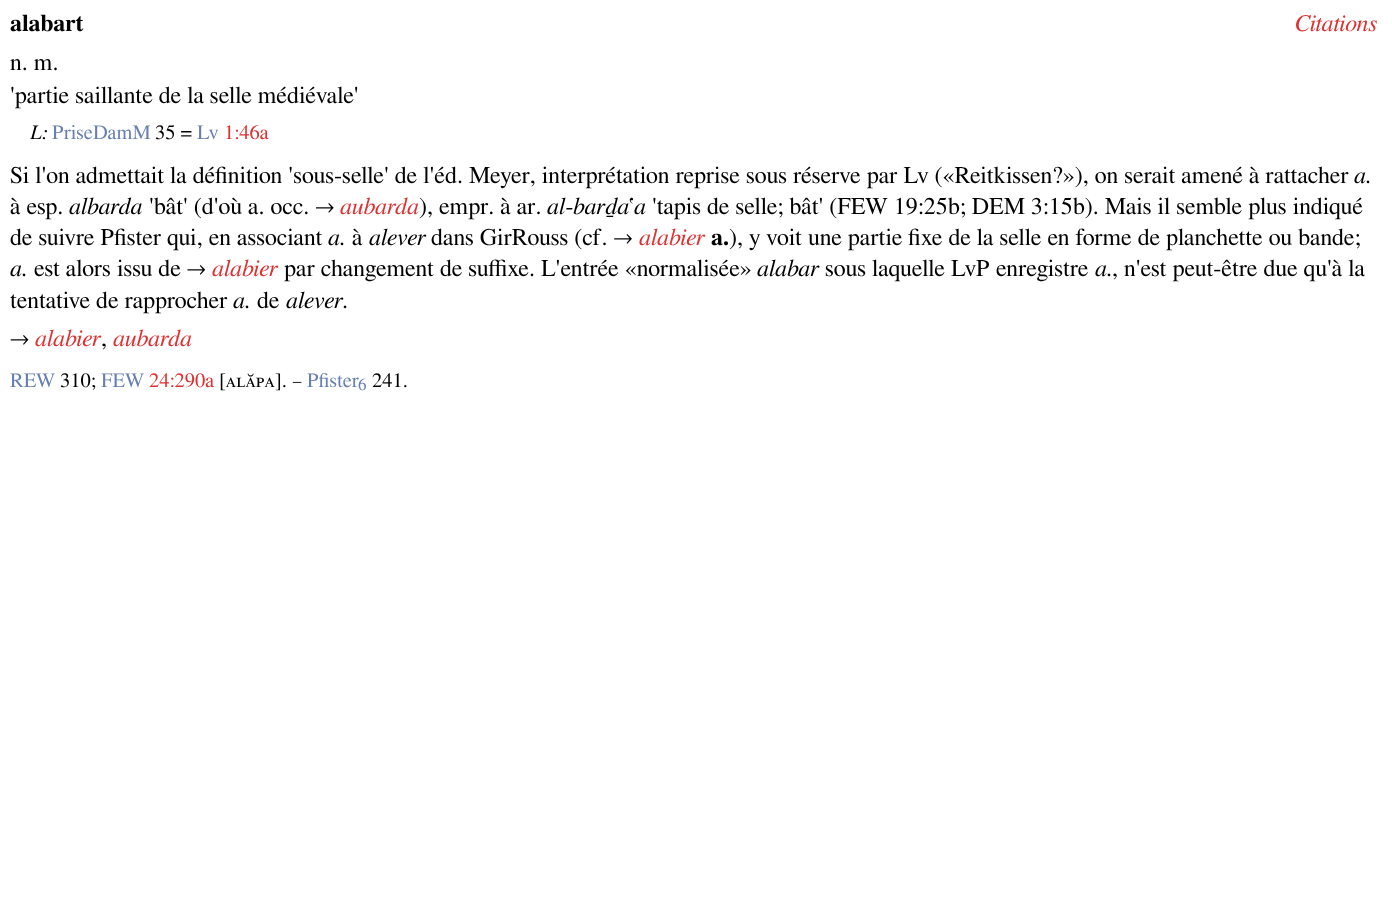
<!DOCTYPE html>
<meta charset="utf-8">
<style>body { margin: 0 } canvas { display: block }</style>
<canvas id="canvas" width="1392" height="908"></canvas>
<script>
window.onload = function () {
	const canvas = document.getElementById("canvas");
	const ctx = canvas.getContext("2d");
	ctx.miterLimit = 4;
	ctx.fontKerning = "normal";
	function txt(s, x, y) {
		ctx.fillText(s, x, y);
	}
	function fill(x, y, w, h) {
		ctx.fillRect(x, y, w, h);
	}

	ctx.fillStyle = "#FFFFFF";
	fill(0, 0, 1392, 908);
	ctx.font = "bold 24px FreeSerif";
	ctx.fillStyle = "#000000";
	txt("alabart", 10, 31);
	ctx.font = "italic 24px FreeSerif";
	ctx.fillStyle = "#DE3131";
	txt("Citations", 1295, 31);
	ctx.font = "24px FreeSerif";
	ctx.fillStyle = "#000000";
	txt("n. m.", 10, 70);
	txt("'partie saillante de la selle médiévale'", 10, 103);
	ctx.font = "italic 20.5px FreeSerif";
	txt("L:", 30, 139);
	ctx.font = "20.5px FreeSerif";
	ctx.fillStyle = "#677FB1";
	txt("PriseDamM", 52, 139);
	ctx.fillStyle = "#000000";
	txt("35 =", 155, 139);
	ctx.fillStyle = "#677FB1";
	txt("Lv", 197, 139);
	ctx.fillStyle = "#DE3131";
	txt("1:46a", 224, 139);
	ctx.font = "24px FreeSerif";
	ctx.fillStyle = "#000000";
	txt("Si l'on admettait la définition 'sous‑selle' de l'éd. Meyer, interprétation reprise sous réserve par Lv («Reitkissen?»), on serait amené à rattacher", 10, 183);
	ctx.font = "italic 24px FreeSerif";
	txt("a.", 1354, 183);
	ctx.font = "24px FreeSerif";
	txt("à esp.", 10, 214);
	ctx.font = "italic 24px FreeSerif";
	txt("albarda", 69, 214);
	ctx.font = "24px FreeSerif";
	txt("'bât' (d'où a. occ. →", 149, 214);
	ctx.font = "italic 24px FreeSerif";
	ctx.fillStyle = "#DE3131";
	txt("aubarda", 340, 214);
	ctx.font = "24px FreeSerif";
	ctx.fillStyle = "#000000";
	txt("), empr. à ar.", 419, 214);
	ctx.font = "italic 24px FreeSerif";
	txt("al‑barḏa", 547, 214);
	ctx.font = "24px FreeSerif";
	txt("‛", 629, 214);
	ctx.font = "italic 24px FreeSerif";
	txt("a", 634, 214);
	ctx.font = "24px FreeSerif";
	txt("'tapis de selle; bât' (FEW 19:25b; DEM 3:15b). Mais il semble plus indiqué", 652, 214);
	txt("de suivre Pfister qui, en associant", 10, 245);
	ctx.font = "italic 24px FreeSerif";
	txt("a.", 328, 245);
	ctx.font = "24px FreeSerif";
	txt("à", 352, 245);
	ctx.font = "italic 24px FreeSerif";
	txt("alever", 369, 245);
	ctx.font = "24px FreeSerif";
	txt("dans GirRouss (cf. →", 431, 245);
	ctx.font = "italic 24px FreeSerif";
	ctx.fillStyle = "#DE3131";
	txt("alabier", 639, 245);
	ctx.font = "bold 24px FreeSerif";
	ctx.fillStyle = "#000000";
	txt("a.", 711, 245);
	ctx.font = "24px FreeSerif";
	txt("), y voit une partie fixe de la selle en forme de planchette ou bande;", 729, 245);
	ctx.font = "italic 24px FreeSerif";
	txt("a.", 10, 276);
	ctx.font = "24px FreeSerif";
	txt("est alors issu de →", 34, 276);
	ctx.font = "italic 24px FreeSerif";
	ctx.fillStyle = "#DE3131";
	txt("alabier", 212, 276);
	ctx.font = "24px FreeSerif";
	ctx.fillStyle = "#000000";
	txt("par changement de suffixe. L'entrée «normalisée»", 284, 276);
	ctx.font = "italic 24px FreeSerif";
	txt("alabar", 757, 276);
	ctx.font = "24px FreeSerif";
	txt("sous laquelle LvP enregistre", 825, 276);
	ctx.font = "italic 24px FreeSerif";
	txt("a.", 1095, 276);
	ctx.font = "24px FreeSerif";
	txt(", n'est peut‑être due qu'à la", 1112, 276);
	txt("tentative de rapprocher", 10, 308);
	ctx.font = "italic 24px FreeSerif";
	txt("a.", 233, 308);
	ctx.font = "24px FreeSerif";
	txt("de", 257, 308);
	ctx.font = "italic 24px FreeSerif";
	txt("alever", 286, 308);
	ctx.font = "24px FreeSerif";
	txt(".", 342, 308);
	txt("→", 10, 346);
	ctx.font = "italic 24px FreeSerif";
	ctx.fillStyle = "#DE3131";
	txt("alabier", 35, 346);
	txt("aubarda", 113, 346);
	ctx.font = "24px FreeSerif";
	ctx.fillStyle = "#000000";
	txt(",", 101, 346);
	ctx.font = "20.5px FreeSerif";
	ctx.fillStyle = "#677FB1";
	txt("REW", 10, 387);
	ctx.fillStyle = "#000000";
	txt("310;", 60, 387);
	ctx.fillStyle = "#677FB1";
	txt("FEW", 101, 387);
	ctx.fillStyle = "#DE3131";
	txt("24:290a", 149, 387);
	ctx.fillStyle = "#000000";
	txt("[ᴀʟᴀ̆ᴘᴀ]. –", 219, 387);
	ctx.fillStyle = "#677FB1";
	txt("Pfister", 307, 387);
	ctx.font = "17px FreeSerif";
	txt("6", 358, 390);
	ctx.font = "20.5px FreeSerif";
	ctx.fillStyle = "#000000";
	txt("241.", 372, 387);
};
</script>
